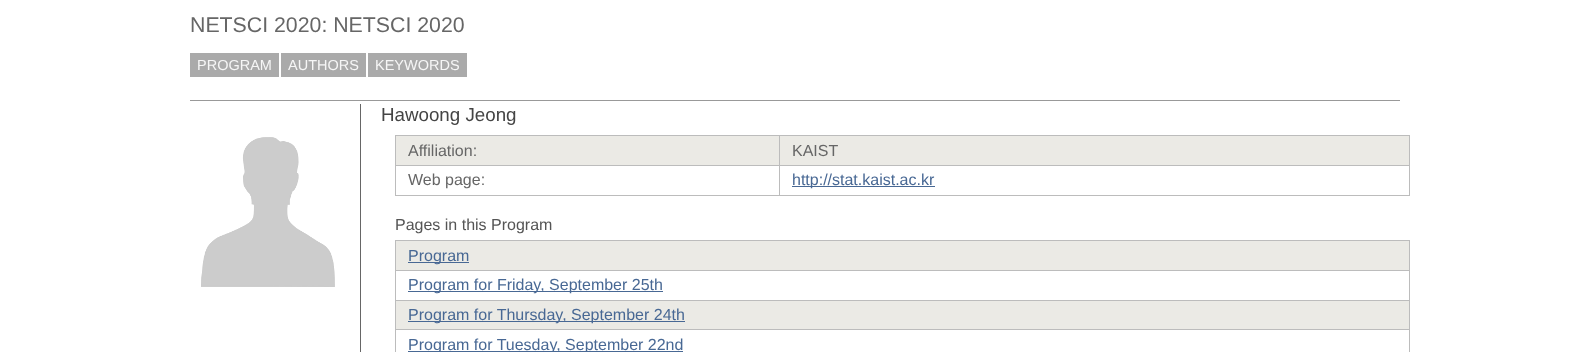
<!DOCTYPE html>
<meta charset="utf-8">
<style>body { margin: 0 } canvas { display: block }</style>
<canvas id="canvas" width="1580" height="352"></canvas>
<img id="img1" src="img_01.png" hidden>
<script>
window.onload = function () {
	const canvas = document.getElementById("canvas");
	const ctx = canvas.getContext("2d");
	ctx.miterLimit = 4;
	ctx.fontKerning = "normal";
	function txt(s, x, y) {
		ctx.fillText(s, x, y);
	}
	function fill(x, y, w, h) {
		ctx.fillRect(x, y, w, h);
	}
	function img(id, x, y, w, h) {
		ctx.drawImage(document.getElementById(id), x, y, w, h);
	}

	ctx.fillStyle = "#FFFFFF";
	fill(0, 0, 1580, 352);
	ctx.fillStyle = "#AAAAAA";
	fill(190, 53, 89, 24);
	fill(281, 53, 85, 24);
	fill(368, 53, 99, 24);
	ctx.fillStyle = "#999999";
	fill(190, 100, 1210, 1);
	img("img1", 201, 137, 134, 150);
	ctx.fillStyle = "#666666";
	fill(360, 104, 1, 248);
	ctx.fillStyle = "#EBEAE5";
	fill(396, 136, 1013, 29);
	ctx.fillStyle = "#BCBCBC";
	fill(395, 135, 1015, 1);
	fill(779, 165, 631, 1);
	fill(395, 195, 1015, 1);
	fill(779, 165, 1, 31);
	fill(395, 165, 385, 1);
	fill(779, 135, 1, 31);
	fill(395, 135, 1, 61);
	fill(1409, 135, 1, 61);
	ctx.fillStyle = "#486894";
	fill(792, 186, 143, 1);
	ctx.fillStyle = "#EBEAE5";
	fill(396, 241, 1013, 29);
	ctx.fillStyle = "#BCBCBC";
	fill(395, 240, 1015, 1);
	ctx.fillStyle = "#486894";
	fill(408, 262, 61, 1);
	ctx.fillStyle = "#BCBCBC";
	fill(395, 270, 1015, 1);
	fill(395, 300, 1015, 1);
	fill(395, 329, 1015, 1);
	fill(1409, 329, 1, 23);
	fill(1409, 300, 1, 30);
	fill(1409, 240, 1, 61);
	fill(395, 329, 1, 23);
	fill(395, 300, 1, 30);
	fill(395, 240, 1, 61);
	ctx.fillStyle = "#486894";
	fill(408, 291, 255, 1);
	ctx.fillStyle = "#EBEAE5";
	fill(396, 301, 1013, 28);
	ctx.fillStyle = "#486894";
	fill(408, 321, 277, 1);
	fill(408, 351, 275, 1);
	ctx.font = "21.3px Liberation Sans";
	ctx.fillStyle = "#666666";
	txt("NETSCI 2020: NETSCI 2020", 190, 32);
	ctx.font = "14.5px Liberation Sans";
	ctx.fillStyle = "#F6F6F6";
	txt("PROGRAM", 197, 70);
	txt("AUTHORS", 288, 70);
	txt("KEYWORDS", 375, 70);
	ctx.font = "18.75px Liberation Sans";
	ctx.fillStyle = "#444444";
	txt("Hawoong Jeong", 381, 121);
	ctx.font = "16px Liberation Sans";
	ctx.fillStyle = "#666666";
	txt("Affiliation:", 408, 156);
	txt("KAIST", 792, 156);
	txt("Web page:", 408, 185);
	ctx.fillStyle = "#486894";
	txt("http://stat.kaist.ac.kr", 792, 185);
	ctx.fillStyle = "#555555";
	txt("Pages in this Program", 395, 230);
	ctx.fillStyle = "#486894";
	txt("Program", 408, 261);
	txt("Program for Friday, September 25th", 408, 290);
	txt("Program for Thursday, September 24th", 408, 320);
	txt("Program for Tuesday, September 22nd", 408, 350);
};
</script>
